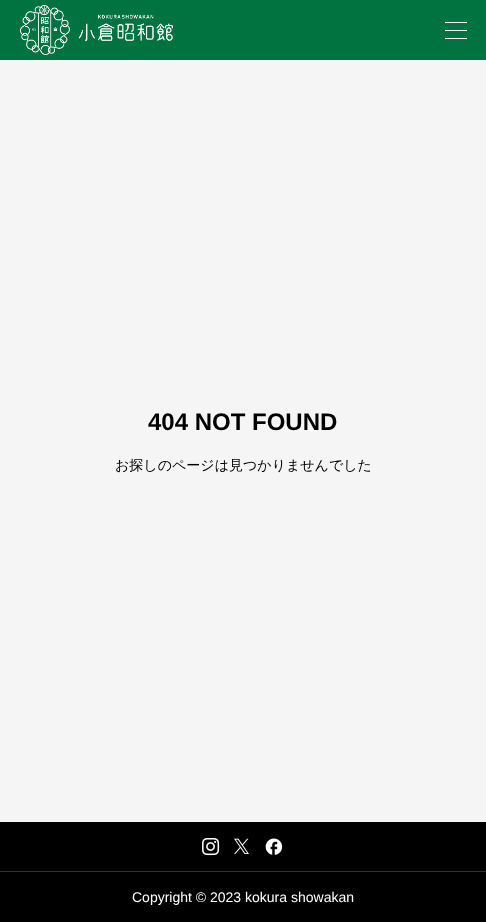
<!DOCTYPE html>
<meta charset="utf-8">
<style>body { margin: 0 } canvas { display: block }</style>
<canvas id="canvas" width="486" height="922"></canvas>
<img id="img1" src="img_01.png" hidden>
<img id="img2" src="img_02.png" hidden>
<img id="img3" src="img_03.png" hidden>
<img id="img4" src="img_04.png" hidden>
<script>
window.onload = function () {
	const canvas = document.getElementById("canvas");
	const ctx = canvas.getContext("2d");
	ctx.miterLimit = 4;
	ctx.fontKerning = "normal";
	function txt(s, x, y) {
		ctx.fillText(s, x, y);
	}
	function fill(x, y, w, h) {
		ctx.fillRect(x, y, w, h);
	}
	function img(id, x, y, w, h) {
		ctx.drawImage(document.getElementById(id), x, y, w, h);
	}

	ctx.fillStyle = "#F5F5F5";
	fill(0, 0, 486, 922);
	ctx.fillStyle = "#007340";
	fill(0, 0, 486, 60);
	img("img1", 20, 5, 153, 50);
	ctx.fillStyle = "#FFFFFF";
	fill(445, 22, 22, 1);
	fill(445, 30, 22, 1);
	fill(445, 38, 22, 1);
	ctx.fillStyle = "#000000";
	fill(0, 822, 486, 100);
	ctx.fillStyle = "#333333";
	fill(0, 871, 486, 1);
	img("img2", 202, 838, 18, 18);
	img("img3", 234, 838, 15, 16);
	img("img4", 265, 838, 18, 17);
	ctx.font = "bold 24px Liberation Sans";
	ctx.fillStyle = "#000000";
	txt("404 NOT FOUND", 148, 430);
	ctx.font = "500 14px WenQuanYi Zen Hei";
	txt("お探しのページは見つかりませんでした", 115, 470);
	ctx.font = "14px Liberation Sans";
	ctx.fillStyle = "#FFFFFF";
	txt("Copyright © 2023 kokura showakan", 132, 902);
};
</script>
